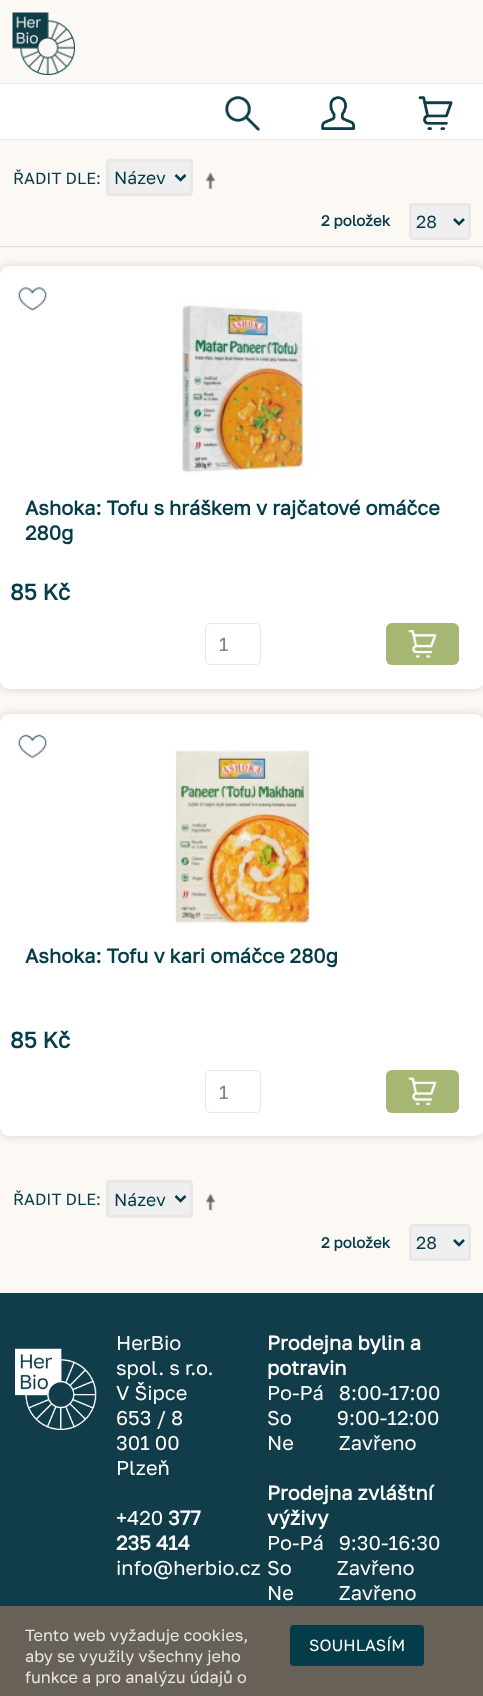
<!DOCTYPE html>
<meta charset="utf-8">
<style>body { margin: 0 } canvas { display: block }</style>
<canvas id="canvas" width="483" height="1696"></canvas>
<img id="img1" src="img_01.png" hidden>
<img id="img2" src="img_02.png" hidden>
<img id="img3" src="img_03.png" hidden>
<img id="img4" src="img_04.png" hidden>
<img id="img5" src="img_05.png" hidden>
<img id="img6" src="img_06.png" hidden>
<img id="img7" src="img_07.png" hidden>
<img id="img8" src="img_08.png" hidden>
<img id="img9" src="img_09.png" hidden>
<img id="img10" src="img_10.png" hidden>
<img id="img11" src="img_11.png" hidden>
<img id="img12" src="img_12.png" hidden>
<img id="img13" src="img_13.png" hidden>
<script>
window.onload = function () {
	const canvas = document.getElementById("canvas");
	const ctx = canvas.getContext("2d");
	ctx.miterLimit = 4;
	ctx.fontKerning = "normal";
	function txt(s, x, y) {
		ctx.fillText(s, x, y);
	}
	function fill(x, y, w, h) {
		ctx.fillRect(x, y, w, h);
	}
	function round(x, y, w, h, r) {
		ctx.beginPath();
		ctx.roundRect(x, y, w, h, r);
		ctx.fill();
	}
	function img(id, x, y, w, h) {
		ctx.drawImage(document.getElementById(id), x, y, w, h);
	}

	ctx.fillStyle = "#FCF9F4";
	fill(0, 0, 483, 1696);
	img("img1", 12, 12, 63, 63);
	ctx.fillStyle = "#FFFFFF";
	fill(0, 84, 483, 55);
	ctx.fillStyle = "#EDEDED";
	fill(0, 83, 483, 1);
	fill(0, 139, 483, 1);
	img("img2", 225, 96, 35, 35);
	img("img3", 321, 96, 34, 34);
	img("img4", 418, 96, 35, 34);
	ctx.fillStyle = "#DFDFDF";
	fill(0, 246, 483, 1);
	ctx.fillStyle = "#EFEFEF";
	ctx.beginPath();
	ctx.roundRect(107.5, 160.5, 84, 34, 2.5);
	ctx.fill();
	ctx.strokeStyle = "#E8E8E8";
	ctx.lineWidth = 3;
	ctx.stroke();
	ctx.beginPath();
	ctx.moveTo(175.5, 175);
	ctx.lineTo(180.5, 180);
	ctx.lineTo(185.5, 175);
	ctx.strokeStyle = "#043C49";
	ctx.lineWidth = 2.5;
	ctx.stroke();
	img("img5", 206, 172, 10, 18);
	ctx.beginPath();
	ctx.roundRect(410.5, 204.5, 59, 34, 2.5);
	ctx.fill();
	ctx.strokeStyle = "#E8E8E8";
	ctx.lineWidth = 3;
	ctx.stroke();
	ctx.beginPath();
	ctx.moveTo(454, 219);
	ctx.lineTo(459, 224);
	ctx.lineTo(464, 219);
	ctx.strokeStyle = "#043C49";
	ctx.lineWidth = 2.5;
	ctx.stroke();
	ctx.fillStyle = "rgba(192, 192, 192, 0.7)";
	ctx.filter = "blur(4px)";
	ctx.beginPath();
	ctx.roundRect(0, 266, 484, 423, 9);
	ctx.fill();
	ctx.filter = "none";
	ctx.fillStyle = "#FFFFFF";
	round(0, 266, 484, 423, 9);
	img("img6", 18, 287, 29, 24);
	img("img7", 175, 301, 140, 175);
	ctx.beginPath();
	ctx.roundRect(205.5, 623.5, 55, 41, 4.5);
	ctx.strokeStyle = "#E8E8E8";
	ctx.lineWidth = 1;
	ctx.stroke();
	ctx.fillStyle = "#A5B772";
	round(386, 623, 73, 42, 6);
	img("img8", 408, 630, 29, 28);
	ctx.fillStyle = "rgba(192, 192, 192, 0.7)";
	ctx.filter = "blur(4px)";
	ctx.beginPath();
	ctx.roundRect(0, 714, 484, 422, 9);
	ctx.fill();
	ctx.filter = "none";
	ctx.fillStyle = "#FFFFFF";
	round(0, 714, 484, 422, 9);
	img("img9", 18, 734, 29, 24);
	img("img10", 174, 748, 141, 176);
	ctx.beginPath();
	ctx.roundRect(205.5, 1070.5, 55, 42, 4.5);
	ctx.stroke();
	ctx.fillStyle = "#A5B772";
	round(386, 1070, 73, 43, 6);
	img("img11", 408, 1077, 29, 28);
	ctx.fillStyle = "#EFEFEF";
	ctx.beginPath();
	ctx.roundRect(107.5, 1181.5, 84, 35, 2.5);
	ctx.fill();
	ctx.lineWidth = 3;
	ctx.stroke();
	ctx.beginPath();
	ctx.moveTo(175.5, 1196);
	ctx.lineTo(180.5, 1201);
	ctx.lineTo(185.5, 1196);
	ctx.strokeStyle = "#043C49";
	ctx.lineWidth = 2.5;
	ctx.stroke();
	img("img12", 206, 1193, 10, 18);
	ctx.beginPath();
	ctx.roundRect(410.5, 1225.5, 59, 34, 2.5);
	ctx.fill();
	ctx.strokeStyle = "#E8E8E8";
	ctx.lineWidth = 3;
	ctx.stroke();
	ctx.beginPath();
	ctx.moveTo(454, 1240);
	ctx.lineTo(459, 1245);
	ctx.lineTo(464, 1240);
	ctx.strokeStyle = "#043C49";
	ctx.lineWidth = 2.5;
	ctx.stroke();
	ctx.fillStyle = "#103D49";
	fill(0, 1293, 483, 313);
	img("img13", 15, 1348, 82, 82);
	ctx.fillStyle = "#676157";
	fill(0, 1606, 483, 90);
	ctx.fillStyle = "#043C49";
	round(290, 1625, 134, 41, 4);
	ctx.font = "16.25px Golos Text";
	txt("ŘADIT DLE:", 13, 184);
	ctx.font = "17.5px Golos Text";
	txt("Název", 114, 184);
	ctx.font = "bold 15px Golos Text";
	txt("2 položek", 321, 226);
	ctx.font = "17.5px Golos Text";
	txt("28", 416, 228);
	ctx.font = "bold 20px Golos Text";
	txt("Ashoka: Tofu s hráškem v rajčatové omáčce", 25, 515);
	txt("280g", 25, 540);
	ctx.font = "bold 22.5px Golos Text";
	txt("85 Kč", 10, 600);
	ctx.font = "19px Golos Text";
	ctx.fillStyle = "#808080";
	txt("1", 219, 651);
	ctx.font = "bold 20px Golos Text";
	ctx.fillStyle = "#043C49";
	txt("Ashoka: Tofu v kari omáčce 280g", 25, 963);
	ctx.font = "bold 22.5px Golos Text";
	txt("85 Kč", 10, 1048);
	ctx.font = "19px Golos Text";
	ctx.fillStyle = "#808080";
	txt("1", 219, 1099);
	ctx.font = "16.25px Golos Text";
	ctx.fillStyle = "#043C49";
	txt("ŘADIT DLE:", 13, 1205);
	ctx.font = "17.5px Golos Text";
	txt("Název", 114, 1206);
	ctx.font = "bold 15px Golos Text";
	txt("2 položek", 321, 1248);
	ctx.font = "17.5px Golos Text";
	txt("28", 416, 1249);
	ctx.font = "20px Golos Text";
	ctx.fillStyle = "#FFFFFF";
	txt("HerBio", 116, 1350);
	txt("spol. s r.o.", 116, 1375);
	txt("V Šipce", 116, 1400);
	txt("653 / 8", 116, 1425);
	txt("301 00", 116, 1450);
	txt("Plzeň", 116, 1475);
	txt("+420", 116, 1525);
	ctx.font = "bold 20px Golos Text";
	txt("377", 168, 1525);
	txt("235 414", 116, 1550);
	ctx.font = "20px Golos Text";
	txt("info@herbio.cz", 116, 1575);
	ctx.font = "bold 20px Golos Text";
	txt("Prodejna bylin a", 267, 1350);
	txt("potravin", 267, 1375);
	ctx.font = "20px Golos Text";
	txt("Po-Pá   8:00-17:00", 267, 1400);
	txt("So         9:00-12:00", 267, 1425);
	txt("Ne         Zavřeno", 267, 1450);
	ctx.font = "bold 20px Golos Text";
	txt("Prodejna zvláštní", 267, 1500);
	txt("výživy", 267, 1525);
	ctx.font = "20px Golos Text";
	txt("Po-Pá   9:30-16:30", 267, 1550);
	txt("So         Zavřeno", 267, 1575);
	txt("Ne         Zavřeno", 267, 1600);
	ctx.font = "16.25px Golos Text";
	ctx.fillStyle = "#E6E6E6";
	txt("Tento web vyžaduje cookies,", 25, 1641);
	txt("aby se využily všechny jeho", 25, 1662);
	txt("funkce a pro analýzu údajů o", 25, 1683);
	ctx.fillStyle = "#FFFFFF";
	txt("SOUHLASÍM", 309, 1651);
};
</script>
